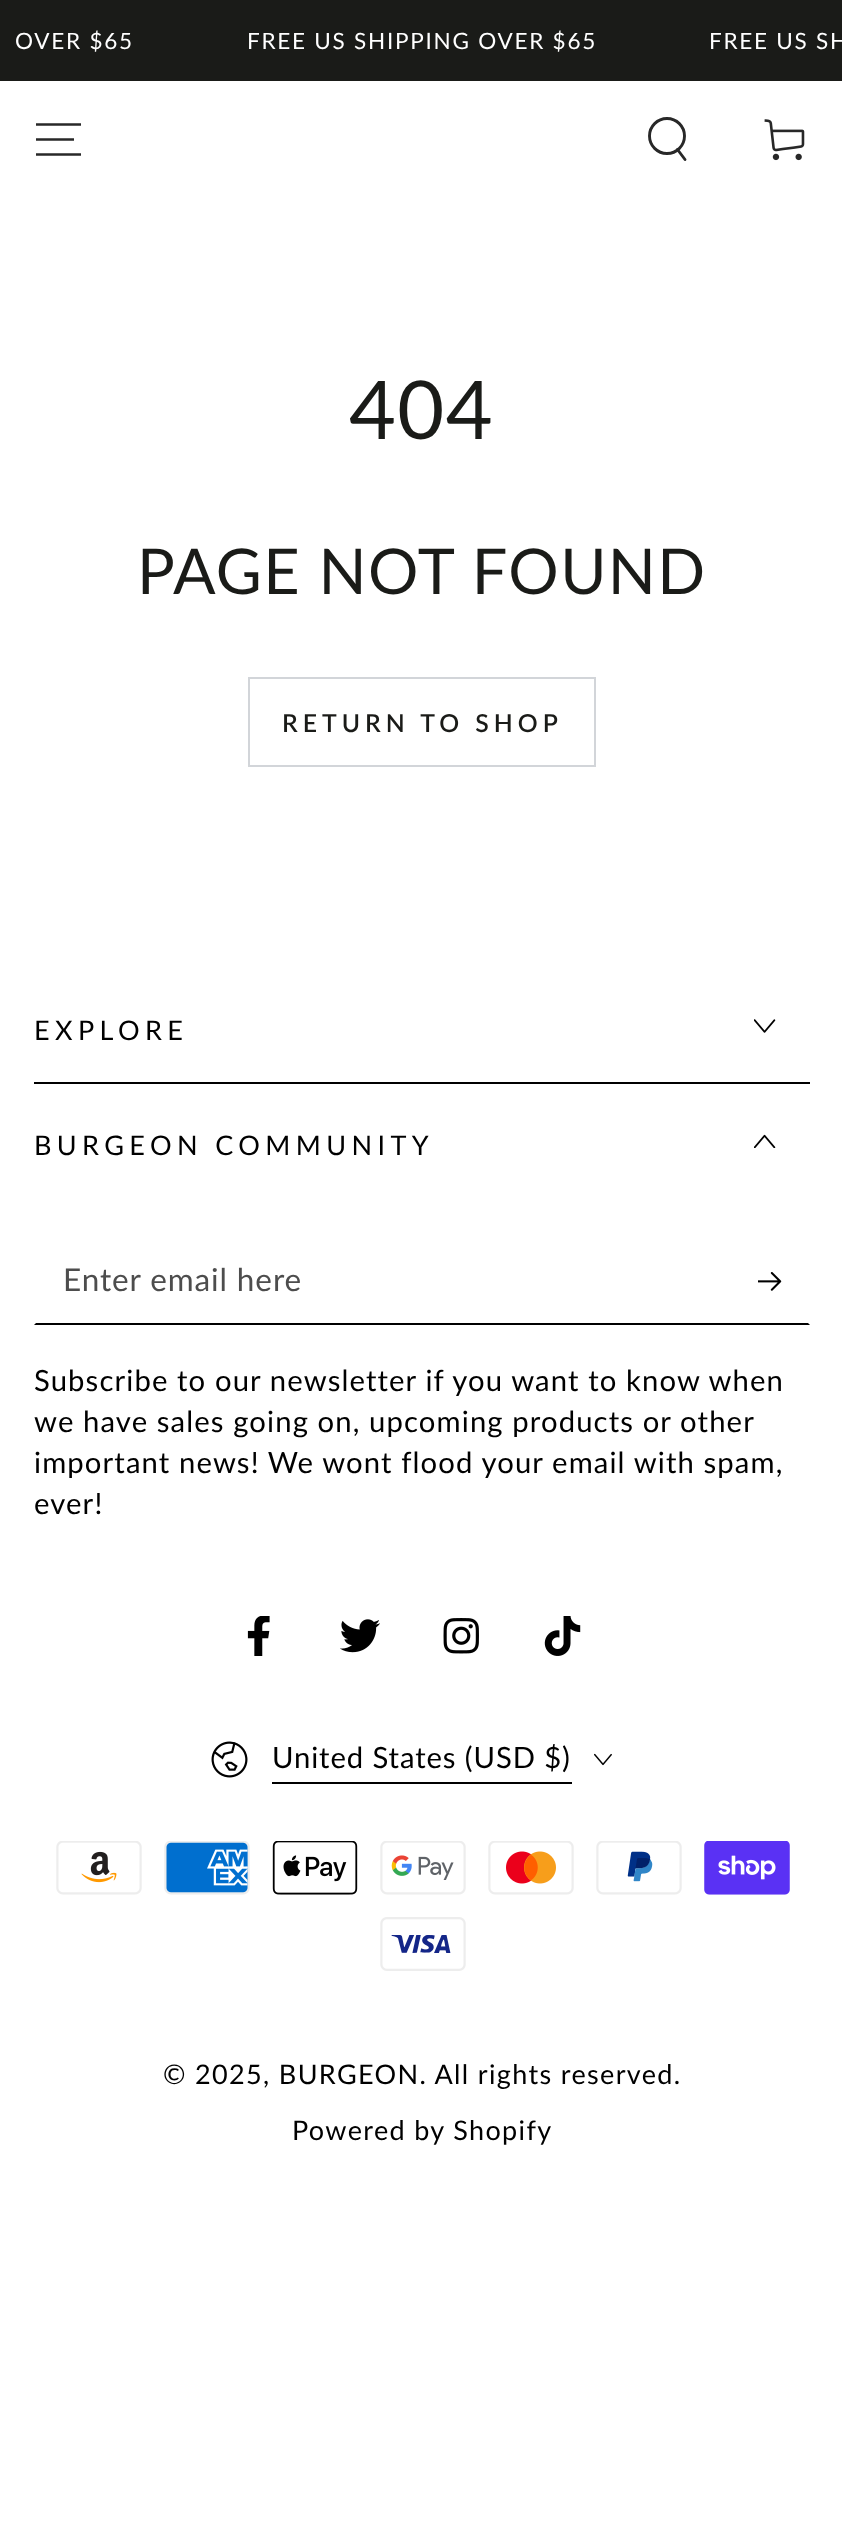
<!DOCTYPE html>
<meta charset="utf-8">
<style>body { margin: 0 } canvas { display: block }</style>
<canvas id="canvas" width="842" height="2522"></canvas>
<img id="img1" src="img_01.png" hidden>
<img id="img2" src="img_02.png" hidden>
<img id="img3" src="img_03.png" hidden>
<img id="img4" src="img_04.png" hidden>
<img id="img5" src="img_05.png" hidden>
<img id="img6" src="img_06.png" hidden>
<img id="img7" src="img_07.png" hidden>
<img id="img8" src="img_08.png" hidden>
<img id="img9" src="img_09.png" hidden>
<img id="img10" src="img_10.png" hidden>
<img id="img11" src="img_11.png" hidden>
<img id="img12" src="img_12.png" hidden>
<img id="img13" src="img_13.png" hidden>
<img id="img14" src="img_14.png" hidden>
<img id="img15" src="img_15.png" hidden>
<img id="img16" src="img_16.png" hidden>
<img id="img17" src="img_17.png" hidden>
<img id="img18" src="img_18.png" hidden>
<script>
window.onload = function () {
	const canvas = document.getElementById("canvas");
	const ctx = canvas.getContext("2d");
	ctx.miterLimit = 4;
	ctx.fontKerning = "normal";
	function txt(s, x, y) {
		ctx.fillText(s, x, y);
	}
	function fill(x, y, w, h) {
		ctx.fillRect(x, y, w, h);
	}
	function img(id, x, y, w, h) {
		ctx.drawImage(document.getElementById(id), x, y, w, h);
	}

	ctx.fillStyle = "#FFFFFF";
	fill(0, 0, 842, 2522);
	ctx.fillStyle = "#1A1B18";
	fill(0, 0, 842, 81);
	ctx.beginPath();
	ctx.moveTo(36, 154.5);
	ctx.lineTo(81, 154.5);
	ctx.moveTo(36, 139.5);
	ctx.lineTo(74, 139.5);
	ctx.moveTo(36, 124.5);
	ctx.lineTo(81, 124.5);
	ctx.strokeStyle = "#282828";
	ctx.lineWidth = 2.5;
	ctx.stroke();
	ctx.beginPath();
	ctx.arc(667, 136, 17.5, 0, Math.PI * 2);
	ctx.lineWidth = 2.9;
	ctx.stroke();
	ctx.beginPath();
	ctx.moveTo(677.5, 149.5);
	ctx.lineTo(685, 159.5);
	ctx.lineCap = "round";
	ctx.stroke();
	img("img1", 764, 119, 41, 42);
	ctx.strokeStyle = "#D2D5D9";
	ctx.lineWidth = 2;
	ctx.strokeRect(249, 678, 346, 88);
	ctx.fillStyle = "#000000";
	fill(34, 1082, 776, 2);
	img("img2", 754, 1019, 22, 14);
	img("img3", 754, 1134, 22, 14);
	ctx.beginPath();
	ctx.moveTo(810, 1325);
	ctx.lineTo(34, 1325);
	ctx.lineTo(36, 1323);
	ctx.lineTo(808, 1323);
	ctx.closePath();
	ctx.fill();
	img("img4", 758, 1272, 24, 19);
	img("img5", 247, 1616, 23, 40);
	img("img6", 340, 1619, 40, 34);
	img("img7", 443, 1618, 36, 36);
	img("img8", 544, 1616, 37, 40);
	img("img9", 211, 1741, 37, 37);
	fill(272, 1782, 300, 2);
	img("img10", 594, 1753, 18, 13);
	img("img11", 56, 1841, 86, 54);
	img("img12", 164, 1841, 86, 54);
	img("img13", 272, 1841, 86, 54);
	img("img14", 380, 1841, 86, 54);
	img("img15", 488, 1841, 86, 54);
	img("img16", 596, 1841, 86, 54);
	img("img17", 704, 1841, 86, 54);
	img("img18", 380, 1917, 86, 54);
	ctx.letterSpacing = "1.75px";
	ctx.font = "22.5px Lato";
	ctx.fillStyle = "#FFFFFF";
	txt("OVER $65", 15, 49);
	txt("FREE US SHIPPING OVER $65", 247, 49);
	txt("FREE US SH", 709, 49);
	ctx.letterSpacing = "1.35px";
	ctx.font = "81px Lato";
	ctx.fillStyle = "#1A1B18";
	txt("404", 349, 439);
	ctx.font = "63px Lato";
	txt("PAGE NOT FOUND", 137, 594);
	ctx.letterSpacing = "5px";
	ctx.font = "600 24.75px Lato";
	txt("RETURN TO SHOP", 282, 732);
	ctx.letterSpacing = "5.4px";
	ctx.font = "27px Lato";
	ctx.fillStyle = "#000000";
	txt("EXPLORE", 34, 1040);
	txt("BURGEON COMMUNITY", 34, 1155);
	ctx.letterSpacing = "0.9px";
	ctx.font = "31.5px Lato";
	ctx.fillStyle = "#4D4D4D";
	txt("Enter email here", 63, 1291);
	ctx.letterSpacing = "1.12px";
	ctx.font = "29.25px Lato";
	ctx.fillStyle = "#000000";
	txt("Subscribe to our newsletter if you want to know when", 34, 1391);
	txt("we have sales going on, upcoming products or other", 34, 1432);
	txt("important news! We wont flood your email with spam,", 34, 1473);
	txt("ever!", 34, 1514);
	ctx.letterSpacing = "0.9px";
	txt("United States (USD $)", 272, 1768);
	ctx.letterSpacing = "1.35px";
	ctx.font = "27px Lato";
	txt("© 2025, BURGEON. All rights reserved.", 163, 2084);
	txt("Powered by Shopify", 292, 2140);
};
</script>
